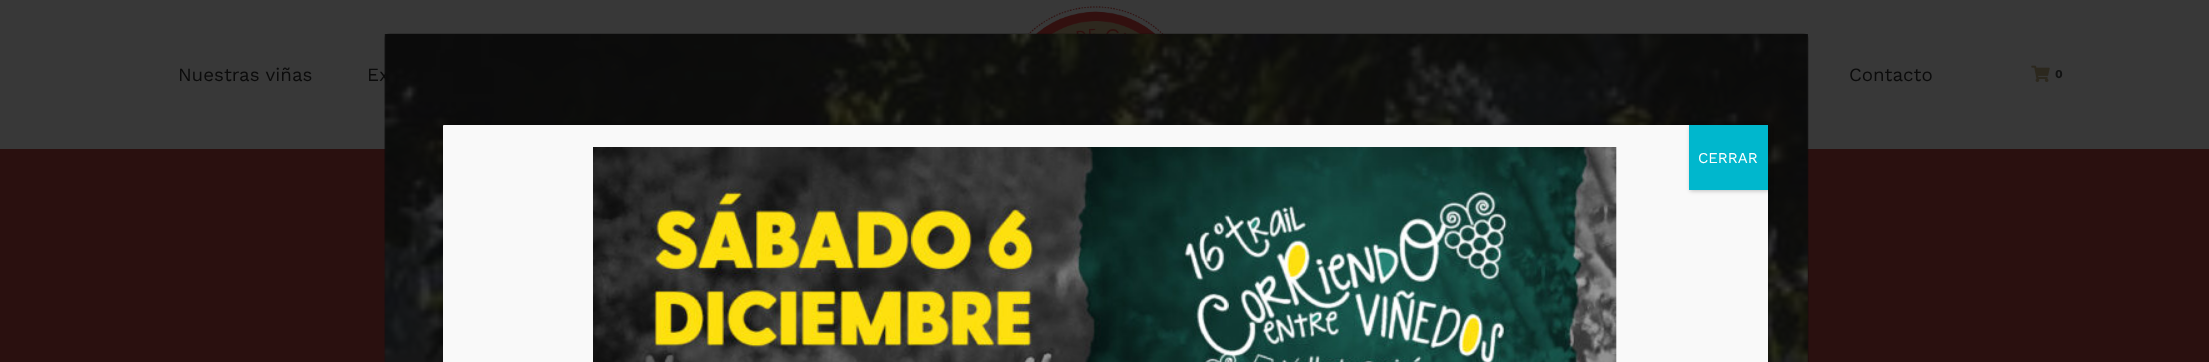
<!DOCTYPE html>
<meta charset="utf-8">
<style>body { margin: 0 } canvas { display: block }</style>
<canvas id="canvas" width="2209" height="362"></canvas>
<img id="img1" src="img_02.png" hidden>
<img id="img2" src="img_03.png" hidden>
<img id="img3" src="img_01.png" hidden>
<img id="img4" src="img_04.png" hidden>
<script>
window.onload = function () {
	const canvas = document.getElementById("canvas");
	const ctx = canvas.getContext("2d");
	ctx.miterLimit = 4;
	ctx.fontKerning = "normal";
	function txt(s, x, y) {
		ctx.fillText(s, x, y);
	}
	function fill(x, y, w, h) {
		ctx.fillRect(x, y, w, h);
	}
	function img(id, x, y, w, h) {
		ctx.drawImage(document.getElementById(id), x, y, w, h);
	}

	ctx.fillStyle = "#383838";
	fill(0, 0, 2209, 362);
	img("img1", 1028, 6, 136, 28);
	img("img2", 2031, 65, 19, 17);
	ctx.fillStyle = "#2A100F";
	fill(0, 149, 2209, 213);
	ctx.font = "18.75px Work Sans";
	ctx.fillStyle = "#0B0B0B";
	txt("Nuestras viñas", 178, 81);
	txt("Ex", 367, 81);
	ctx.beginPath();
	ctx.roundRect(384.5, 33.5, 1424, 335, 5.5);
	ctx.strokeStyle = "rgba(11, 11, 11, 0.2)";
	ctx.stroke();
	img("img3", 384, 34, 1424, 328);
	ctx.fillStyle = "rgba(11, 11, 11, 0.5)";
	fill(385, 34, 1423, 328);
	ctx.fillStyle = "#0B0B0B";
	txt("Contacto", 1849, 81);
	ctx.font = "bold 12px Work Sans";
	ctx.fillStyle = "#111212";
	txt("0", 2055, 78);
	ctx.fillStyle = "rgba(2, 2, 2, 0.33)";
	ctx.filter = "blur(2px)";
	ctx.beginPath();
	ctx.roundRect(444, 126, 1325, 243, 1);
	ctx.fill();
	ctx.filter = "none";
	ctx.fillStyle = "#F9F9F9";
	ctx.beginPath();
	ctx.moveTo(444, 125);
	ctx.lineTo(1767, 125);
	ctx.bezierCurveTo(1767.5, 125, 1768, 125.5, 1768, 126);
	ctx.lineTo(1768, 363);
	ctx.lineTo(443, 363);
	ctx.lineTo(443, 126);
	ctx.bezierCurveTo(443, 125.5, 443.5, 125, 444, 125);
	ctx.closePath();
	ctx.fill();
	img("img4", 593, 147, 1024, 215);
	ctx.fillStyle = "rgba(2, 2, 2, 0.23)";
	ctx.filter = "blur(2px)";
	ctx.beginPath();
	ctx.rect(1690, 126, 79, 65);
	ctx.fill();
	ctx.filter = "none";
	ctx.fillStyle = "#00B7CD";
	fill(1689, 125, 79, 65);
	ctx.font = "15px Work Sans";
	ctx.fillStyle = "#FFFFFF";
	txt("CERRAR", 1698, 163);
};
</script>
